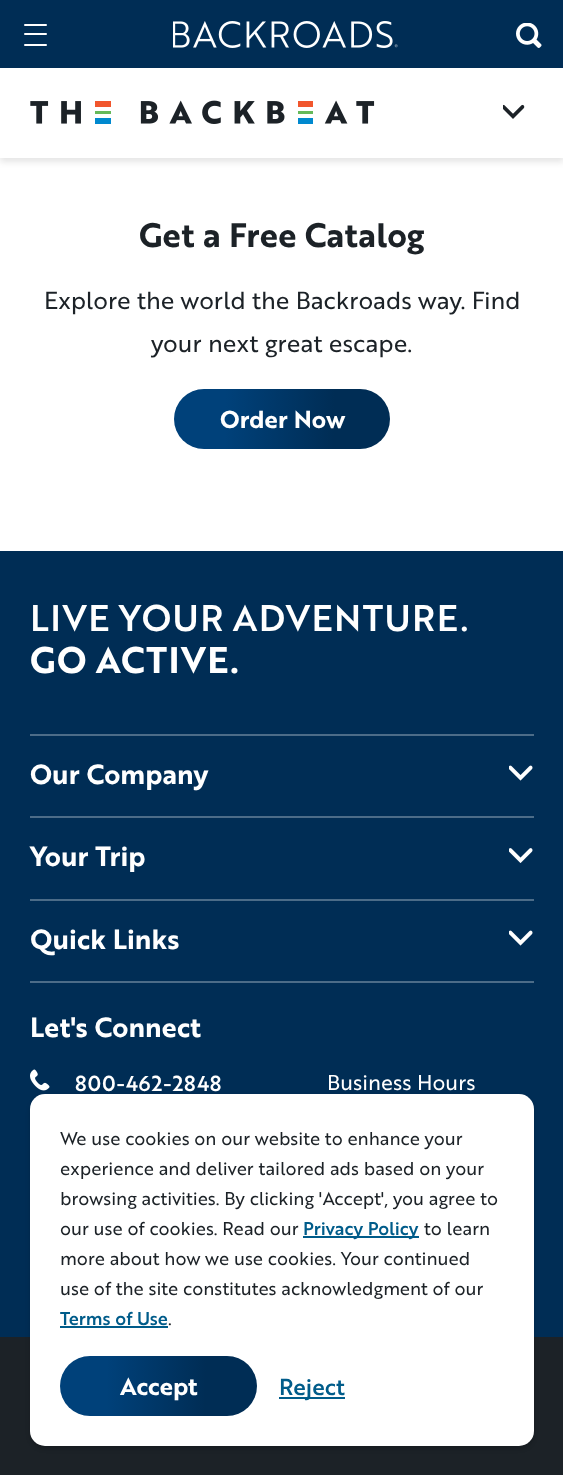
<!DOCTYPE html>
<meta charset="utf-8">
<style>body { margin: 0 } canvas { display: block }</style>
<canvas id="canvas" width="563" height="1475"></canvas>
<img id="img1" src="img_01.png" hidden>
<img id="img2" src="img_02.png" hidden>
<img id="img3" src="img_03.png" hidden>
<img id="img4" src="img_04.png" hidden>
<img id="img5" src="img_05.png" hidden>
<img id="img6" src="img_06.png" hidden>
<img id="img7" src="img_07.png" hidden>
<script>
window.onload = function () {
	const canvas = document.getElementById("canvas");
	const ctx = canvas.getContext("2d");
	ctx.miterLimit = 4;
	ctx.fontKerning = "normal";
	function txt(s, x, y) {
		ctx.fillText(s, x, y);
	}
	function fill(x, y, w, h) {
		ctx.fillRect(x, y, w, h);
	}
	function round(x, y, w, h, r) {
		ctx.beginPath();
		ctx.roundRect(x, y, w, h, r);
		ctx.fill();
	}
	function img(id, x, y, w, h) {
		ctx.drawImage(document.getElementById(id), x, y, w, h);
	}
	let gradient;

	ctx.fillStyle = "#FFFFFF";
	fill(0, 0, 563, 1475);
	ctx.fillStyle = "rgba(0, 0, 0, 0.1)";
	ctx.filter = "blur(3px)";
	ctx.beginPath();
	ctx.rect(0, 72, 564, 90);
	ctx.fill();
	ctx.filter = "none";
	ctx.fillStyle = "#002D55";
	fill(0, 0, 563, 68);
	ctx.fillStyle = "#FFFFFF";
	round(24, 24, 23, 2, 1);
	round(24, 33, 23, 2, 1);
	round(24, 44, 23, 2, 1);
	img("img1", 173, 21, 225, 27);
	img("img2", 516, 23, 26, 25);
	fill(0, 68, 563, 90);
	img("img3", 30, 100, 345, 24);
	img("img4", 503, 104, 22, 15);
	gradient = ctx.createLinearGradient(391, 421, 173, 416);
	gradient.addColorStop(0.26, "#002D55");
	gradient.addColorStop(0.76, "#00417A");
	ctx.fillStyle = gradient;
	round(174, 389, 216, 60, 30);
	ctx.fillStyle = "#002D55";
	fill(0, 551, 563, 786);
	ctx.fillStyle = "#4C6C88";
	fill(30, 734, 504, 2);
	img("img5", 509, 765, 24, 16);
	fill(30, 816, 504, 2);
	img("img6", 509, 848, 24, 15);
	fill(30, 899, 504, 2);
	img("img5", 509, 930, 24, 16);
	fill(30, 981, 504, 2);
	img("img7", 30, 1069, 20, 22);
	ctx.fillStyle = "#1C2227";
	fill(0, 1337, 563, 138);
	ctx.fillStyle = "rgba(0, 0, 0, 0.17)";
	ctx.filter = "blur(2px)";
	ctx.beginPath();
	ctx.roundRect(30, 1097, 504, 352, 15);
	ctx.fill();
	ctx.filter = "none";
	ctx.fillStyle = "#FFFFFF";
	round(30, 1094, 504, 352, 15);
	ctx.fillStyle = "#005C8A";
	fill(303, 1236, 116, 2);
	fill(60, 1326, 108, 2);
	gradient = ctx.createLinearGradient(257, 1388, 59, 1384);
	gradient.addColorStop(0.26, "#002D55");
	gradient.addColorStop(0.76, "#00417A");
	ctx.fillStyle = gradient;
	round(60, 1356, 197, 60, 30);
	ctx.fillStyle = "#005C8A";
	fill(279, 1397, 66, 2);
	ctx.font = "bold 33px 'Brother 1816'";
	ctx.fillStyle = "#1C2227";
	txt("Get a Free Catalog", 139, 247);
	ctx.font = "24px 'Brother 1816'";
	txt("Explore the world the Backroads way. Find", 44, 309);
	txt("your next great escape.", 151, 352);
	ctx.font = "bold 24px 'Brother 1816'";
	ctx.fillStyle = "#FFFFFF";
	txt("Order Now", 220, 428);
	ctx.font = "500 36px 'Brother 1816'";
	txt("LIVE YOUR ADVENTURE.", 30, 631);
	ctx.font = "bold 36px 'Brother 1816'";
	txt("GO ACTIVE.", 30, 673);
	ctx.font = "bold 27px 'Brother 1816'";
	txt("Our Company", 30, 784);
	txt("Your Trip", 30, 866);
	txt("Quick Links", 30, 949);
	txt("Let's Connect", 30, 1037);
	ctx.font = "500 21px 'Brother 1816'";
	txt("800-462-2848", 75, 1091);
	ctx.font = "21px 'Brother 1816'";
	txt("Business Hours", 327, 1090);
	ctx.font = "18px 'Brother 1816'";
	ctx.fillStyle = "#1C2227";
	txt("We use cookies on our website to enhance your", 60, 1145);
	txt("experience and deliver tailored ads based on your", 60, 1175);
	txt("browsing activities. By clicking 'Accept', you agree to", 60, 1205);
	txt("our use of cookies. Read our", 60, 1235);
	ctx.font = "500 18px 'Brother 1816'";
	ctx.fillStyle = "#005C8A";
	txt("Privacy Policy", 303, 1235);
	ctx.font = "18px 'Brother 1816'";
	ctx.fillStyle = "#1C2227";
	txt("to learn", 424, 1235);
	txt("more about how we use cookies. Your continued", 60, 1265);
	txt("use of the site constitutes acknowledgment of our", 60, 1295);
	ctx.font = "500 18px 'Brother 1816'";
	ctx.fillStyle = "#005C8A";
	txt("Terms of Use", 60, 1325);
	ctx.font = "18px 'Brother 1816'";
	ctx.fillStyle = "#1C2227";
	txt(".", 168, 1325);
	ctx.font = "bold 24px 'Brother 1816'";
	ctx.fillStyle = "#FFFFFF";
	txt("Accept", 120, 1395);
	ctx.font = "500 22.5px 'Brother 1816'";
	ctx.fillStyle = "#005C8A";
	txt("Reject", 279, 1395);
};
</script>
